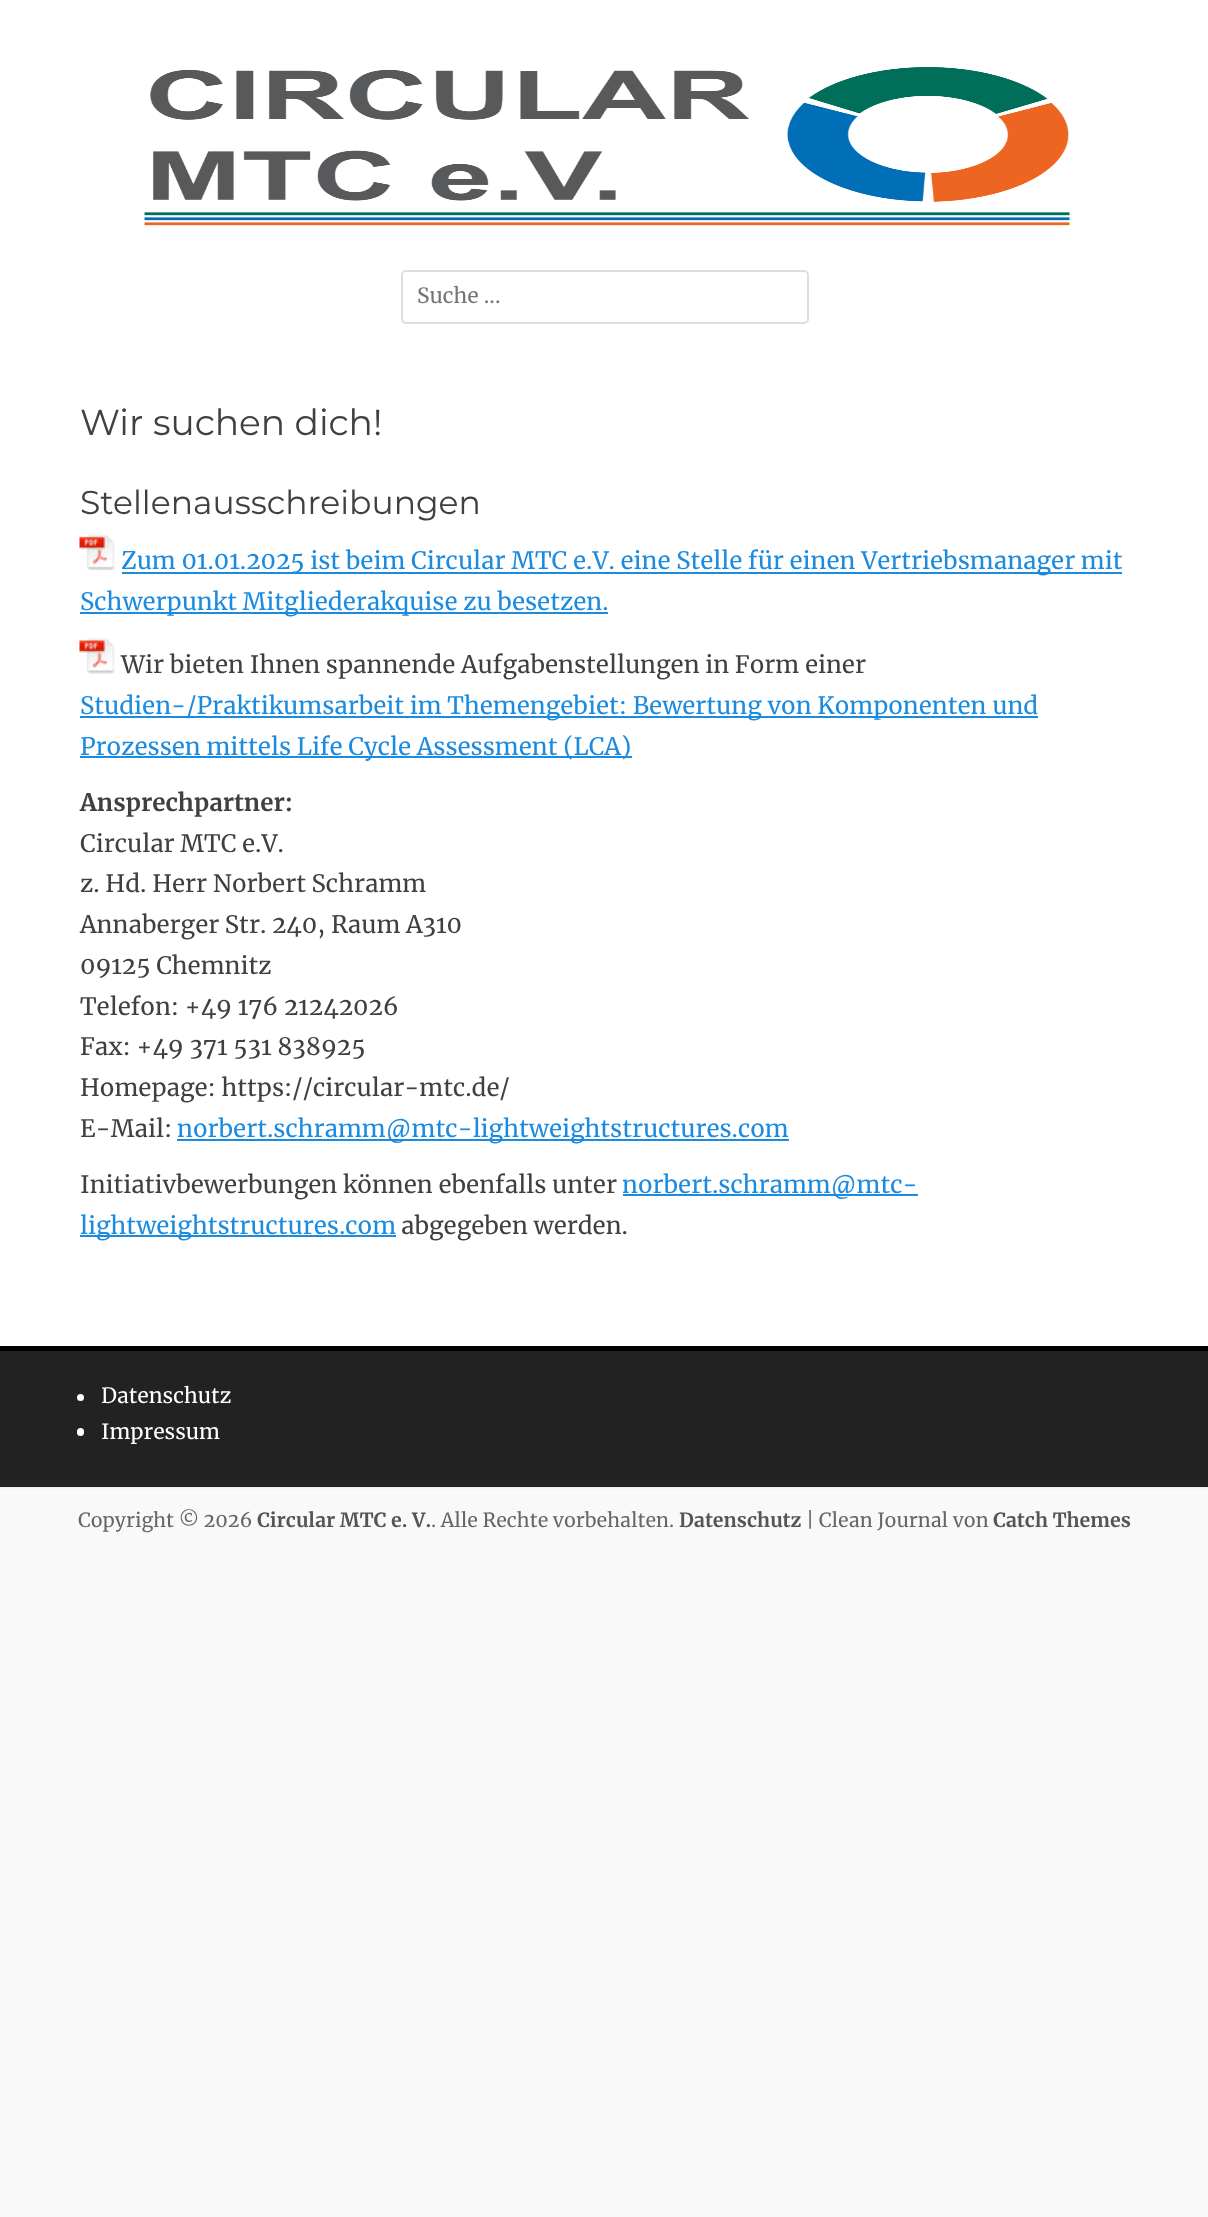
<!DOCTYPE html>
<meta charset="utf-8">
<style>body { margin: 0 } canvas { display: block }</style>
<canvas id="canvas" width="1208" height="2217"></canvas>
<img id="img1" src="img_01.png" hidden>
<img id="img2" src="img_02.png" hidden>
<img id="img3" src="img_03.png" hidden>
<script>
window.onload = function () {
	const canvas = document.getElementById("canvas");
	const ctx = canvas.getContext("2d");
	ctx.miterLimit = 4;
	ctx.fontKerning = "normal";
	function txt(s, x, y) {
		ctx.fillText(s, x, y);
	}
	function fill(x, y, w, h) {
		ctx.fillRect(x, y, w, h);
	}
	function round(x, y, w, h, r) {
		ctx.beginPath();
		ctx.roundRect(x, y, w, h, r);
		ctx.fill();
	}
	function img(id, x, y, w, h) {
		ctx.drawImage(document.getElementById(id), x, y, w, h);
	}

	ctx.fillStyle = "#F9F9F9";
	fill(0, 0, 1208, 2217);
	ctx.fillStyle = "#FFFFFF";
	fill(0, 0, 1208, 1346);
	img("img1", 144, 67, 926, 159);
	ctx.beginPath();
	ctx.roundRect(402, 271, 406, 52, 4);
	ctx.strokeStyle = "#DDDDDD";
	ctx.lineWidth = 2;
	ctx.stroke();
	img("img2", 79, 534, 36, 36);
	ctx.fillStyle = "#1B8BE0";
	fill(122, 572, 1000, 2);
	fill(80, 612, 528, 2);
	img("img3", 79, 637, 36, 37);
	fill(80, 716, 958, 2);
	fill(80, 756, 552, 2);
	fill(177, 1139, 612, 2);
	fill(623, 1194, 295, 2);
	fill(80, 1235, 316, 2);
	ctx.fillStyle = "#222222";
	fill(0, 1351, 1208, 136);
	ctx.fillStyle = "#000000";
	fill(0, 1346, 1208, 5);
	ctx.fillStyle = "#EEEEEE";
	fill(0, 1487, 1208, 1);
	ctx.fillStyle = "#FFFFFF";
	ctx.beginPath();
	ctx.arc(80.5, 1397.5, 3.5, 0, Math.PI * 2);
	ctx.fill();
	round(77, 1428, 7, 8, 3.5);
	ctx.fillStyle = "#F4F4F4";
	fill(0, 1488, 1208, 2);
	ctx.font = "21px Merriweather";
	ctx.fillStyle = "#757575";
	txt("Suche ...", 417, 303);
	ctx.font = "36px Montserrat";
	ctx.fillStyle = "#404040";
	txt("Wir suchen dich!", 80, 435);
	ctx.font = "33px Montserrat";
	txt("Stellenausschreibungen", 80, 514);
	ctx.font = "24px Merriweather";
	ctx.fillStyle = "#1B8BE0";
	txt("Zum 01.01.2025 ist beim Circular MTC e.V. eine Stelle für einen Vertriebsmanager mit", 121, 569);
	txt("Schwerpunkt Mitgliederakquise zu besetzen.", 80, 610);
	ctx.fillStyle = "#404040";
	txt("Wir bieten Ihnen spannende Aufgabenstellungen in Form einer", 121, 673);
	ctx.fillStyle = "#1B8BE0";
	txt("Studien-/Praktikumsarbeit im Themengebiet: Bewertung von Komponenten und", 80, 714);
	txt("Prozessen mittels Life Cycle Assessment (LCA)", 80, 755);
	ctx.font = "bold 24px Merriweather";
	ctx.fillStyle = "#404040";
	txt("Ansprechpartner:", 80, 811);
	ctx.font = "24px Merriweather";
	txt("Circular MTC e.V.", 80, 852);
	txt("z. Hd. Herr Norbert Schramm", 80, 892);
	txt("Annaberger Str. 240, Raum A310", 80, 933);
	txt("09125 Chemnitz", 80, 974);
	txt("Telefon: +49 176 21242026", 80, 1015);
	txt("Fax: +49 371 531 838925", 80, 1055);
	txt("Homepage: https://circular-mtc.de/", 80, 1096);
	txt("E-Mail:", 80, 1137);
	ctx.fillStyle = "#1B8BE0";
	txt("norbert.schramm@mtc-lightweightstructures.com", 177, 1137);
	ctx.fillStyle = "#404040";
	txt("Initiativbewerbungen können ebenfalls unter", 80, 1193);
	ctx.fillStyle = "#1B8BE0";
	txt("norbert.schramm@mtc-", 622, 1193);
	txt("lightweightstructures.com", 80, 1234);
	ctx.fillStyle = "#404040";
	txt("abgegeben werden.", 401, 1234);
	ctx.font = "21px Merriweather";
	ctx.fillStyle = "#FFFFFF";
	txt("Datenschutz", 101, 1403);
	txt("Impressum", 101, 1439);
	ctx.font = "19.5px Merriweather";
	ctx.fillStyle = "#666666";
	txt("Copyright © 2026", 78, 1527);
	ctx.font = "bold 19.5px Merriweather";
	ctx.fillStyle = "#555555";
	txt("Circular MTC e. V.", 257, 1527);
	ctx.font = "19.5px Merriweather";
	ctx.fillStyle = "#666666";
	txt(". Alle Rechte vorbehalten.", 431, 1527);
	ctx.font = "bold 19.5px Merriweather";
	ctx.fillStyle = "#555555";
	txt("Datenschutz", 679, 1527);
	ctx.font = "19.5px Merriweather";
	ctx.fillStyle = "#666666";
	txt("| Clean Journal von", 806, 1527);
	ctx.font = "bold 19.5px Merriweather";
	ctx.fillStyle = "#555555";
	txt("Catch Themes", 993, 1527);
};
</script>
